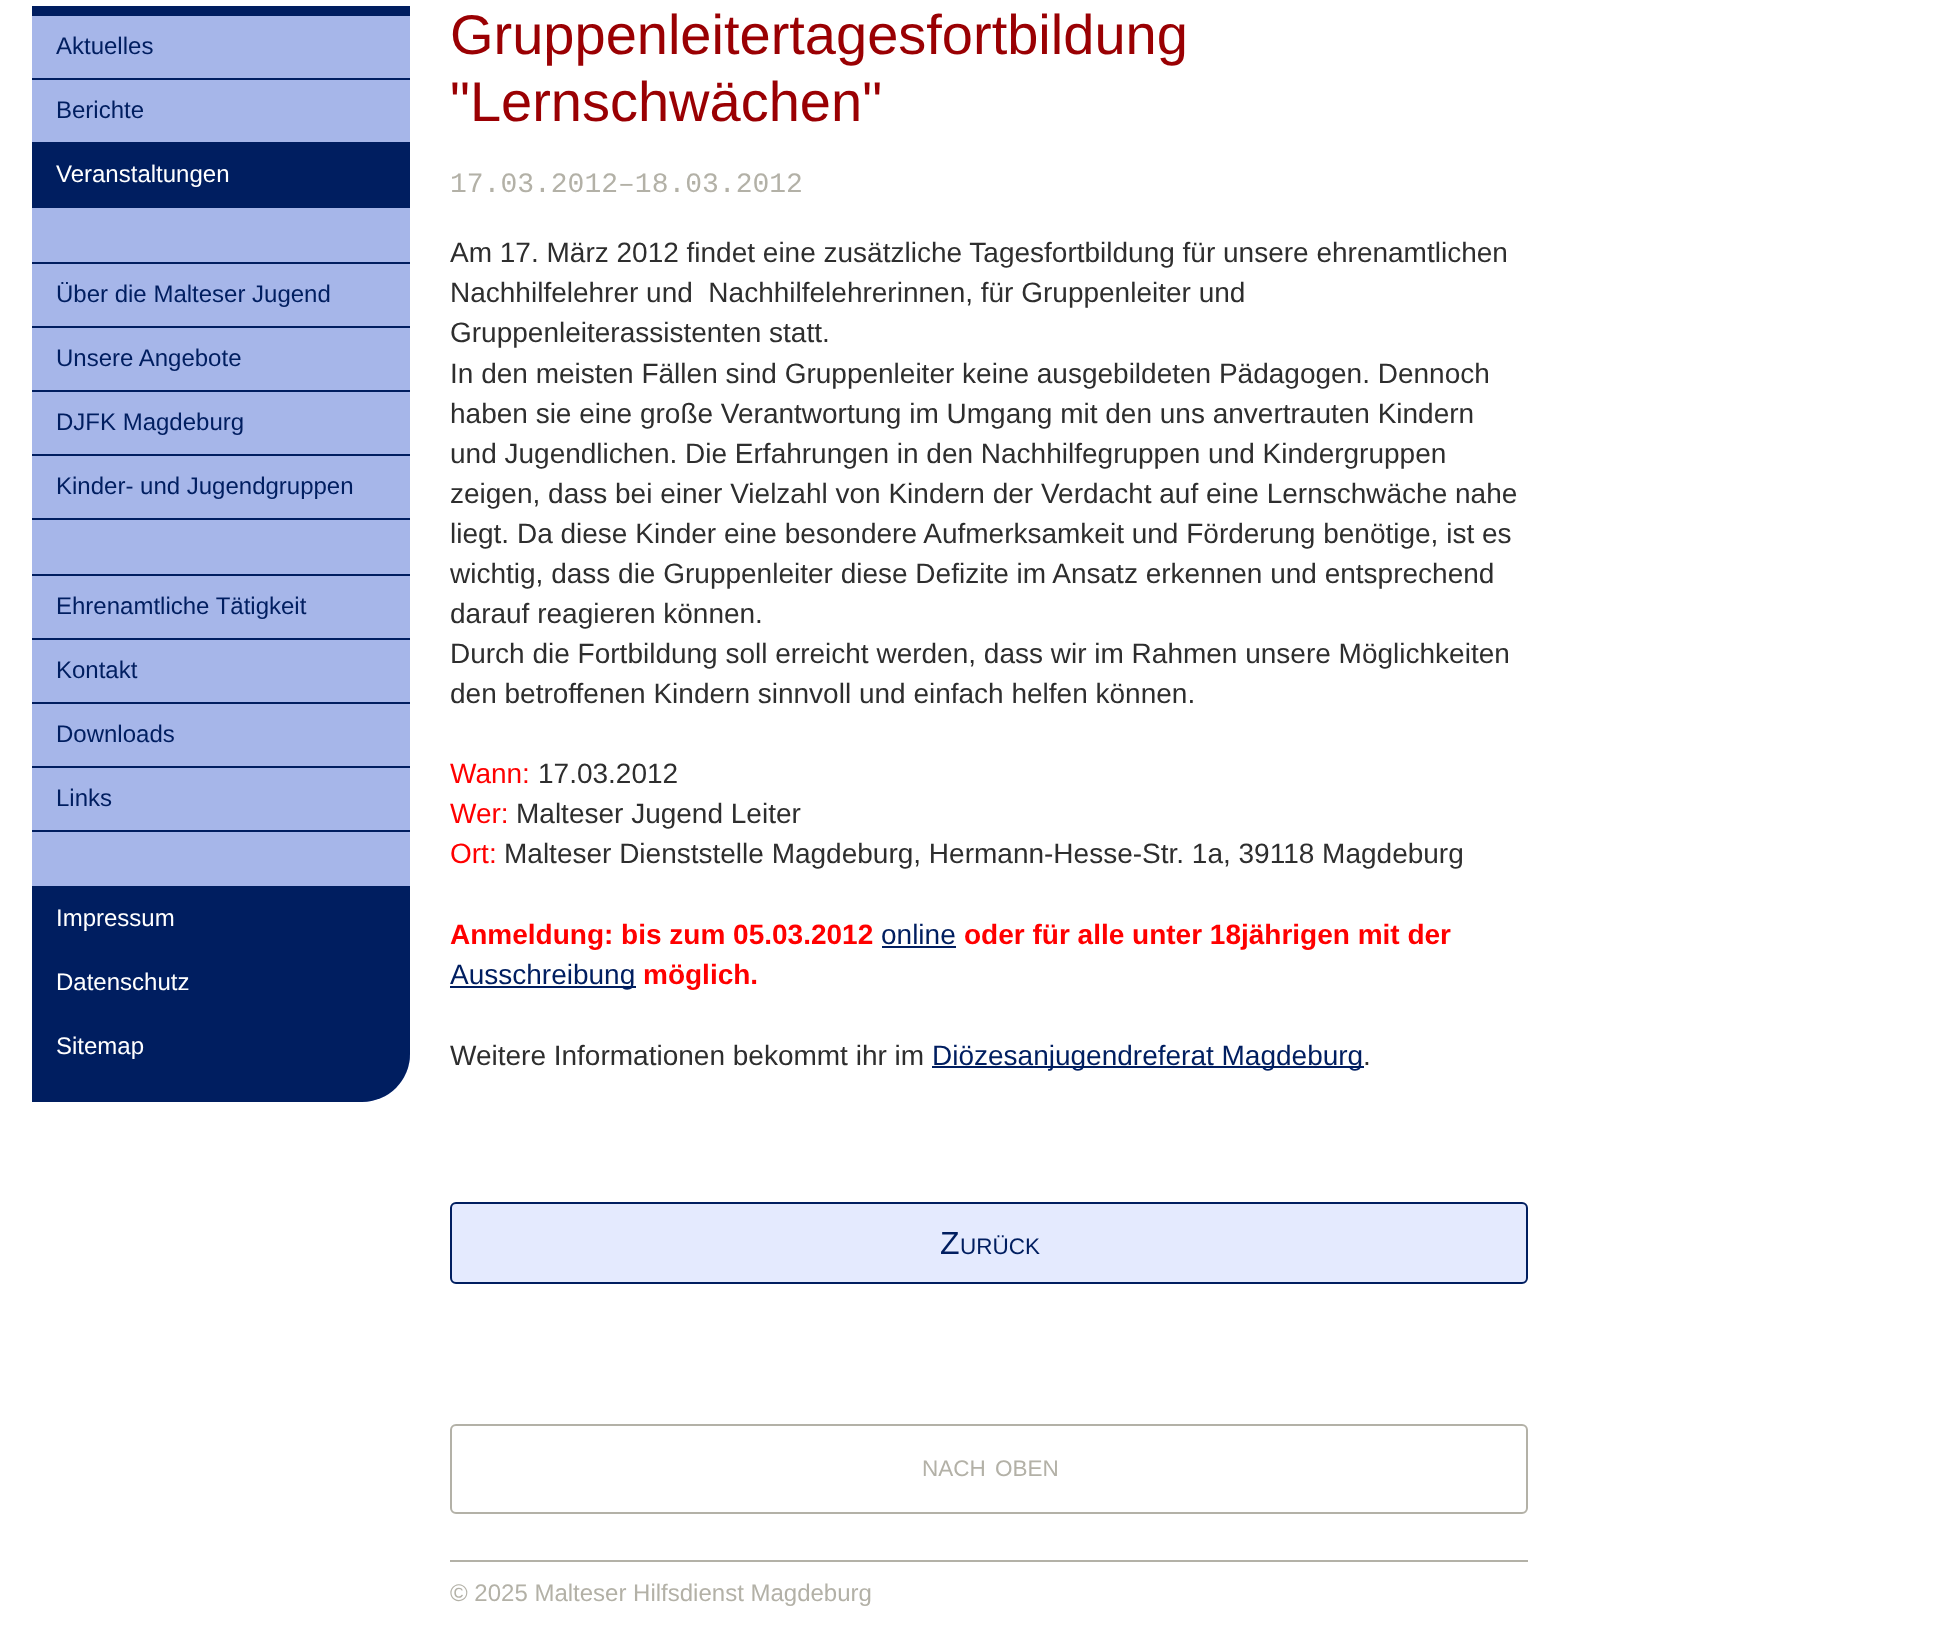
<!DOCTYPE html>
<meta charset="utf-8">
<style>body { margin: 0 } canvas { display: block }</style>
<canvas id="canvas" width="1953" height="1628"></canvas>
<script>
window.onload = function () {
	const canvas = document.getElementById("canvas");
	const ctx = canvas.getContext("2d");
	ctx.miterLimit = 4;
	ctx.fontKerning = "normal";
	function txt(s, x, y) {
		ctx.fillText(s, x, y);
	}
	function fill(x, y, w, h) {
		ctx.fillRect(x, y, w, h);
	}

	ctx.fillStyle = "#FFFFFF";
	fill(0, 0, 1953, 1628);
	ctx.fillStyle = "#A6B6E9";
	ctx.beginPath();
	ctx.roundRect(32, 6, 378, 1096, [0, 0, 48, 0]);
	ctx.fill();
	ctx.fillStyle = "#001E60";
	fill(32, 6, 378, 10);
	fill(32, 78, 378, 2);
	fill(32, 142, 378, 66);
	fill(32, 262, 378, 2);
	fill(32, 326, 378, 2);
	fill(32, 390, 378, 2);
	fill(32, 454, 378, 2);
	fill(32, 518, 378, 2);
	fill(32, 574, 378, 2);
	fill(32, 638, 378, 2);
	fill(32, 702, 378, 2);
	fill(32, 766, 378, 2);
	fill(32, 830, 378, 2);
	fill(32, 886, 378, 128);
	ctx.beginPath();
	ctx.roundRect(32, 1014, 378, 88, [0, 0, 48, 0]);
	ctx.fill();
	fill(882, 946, 74, 2);
	fill(450, 986, 186, 2);
	fill(932, 1066, 432, 2);
	ctx.fillStyle = "#E4EAFE";
	ctx.beginPath();
	ctx.roundRect(451, 1203, 1076, 80, 5);
	ctx.fill();
	ctx.strokeStyle = "#001E60";
	ctx.lineWidth = 2;
	ctx.stroke();
	ctx.beginPath();
	ctx.roundRect(451, 1425, 1076, 88, 5);
	ctx.strokeStyle = "#B3B1A7";
	ctx.stroke();
	ctx.fillStyle = "#B3B1A7";
	fill(450, 1560, 1078, 2);
	ctx.font = "24px Liberation Sans";
	ctx.fillStyle = "#001E60";
	txt("Aktuelles", 56, 54);
	txt("Berichte", 56, 118);
	ctx.fillStyle = "#FFFFFF";
	txt("Veranstaltungen", 56, 182);
	ctx.fillStyle = "#001E60";
	txt("Über die Malteser Jugend", 56, 302);
	txt("Unsere Angebote", 56, 366);
	txt("DJFK Magdeburg", 56, 430);
	txt("Kinder- und Jugendgruppen", 56, 494);
	txt("Ehrenamtliche Tätigkeit", 56, 614);
	txt("Kontakt", 56, 678);
	txt("Downloads", 56, 742);
	txt("Links", 56, 806);
	ctx.fillStyle = "#FFFFFF";
	txt("Impressum", 56, 926);
	txt("Datenschutz", 56, 990);
	txt("Sitemap", 56, 1054);
	ctx.font = "56px Liberation Sans";
	ctx.fillStyle = "#9A0003";
	txt("Gruppenleitertagesfortbildung", 450, 54);
	txt("\"Lernschwächen\"", 450, 121);
	ctx.font = "28px Liberation Mono";
	ctx.fillStyle = "#B3B1A7";
	txt("17.03.2012–18.03.2012", 450, 192);
	ctx.font = "28px Liberation Sans";
	ctx.fillStyle = "#2E2E2E";
	txt("Am 17. März 2012 findet eine zusätzliche Tagesfortbildung für unsere ehrenamtlichen", 450, 262);
	txt("Nachhilfelehrer und  Nachhilfelehrerinnen, für Gruppenleiter und", 450, 302);
	txt("Gruppenleiterassistenten statt.", 450, 342);
	txt("In den meisten Fällen sind Gruppenleiter keine ausgebildeten Pädagogen. Dennoch", 450, 383);
	txt("haben sie eine große Verantwortung im Umgang mit den uns anvertrauten Kindern", 450, 423);
	txt("und Jugendlichen. Die Erfahrungen in den Nachhilfegruppen und Kindergruppen", 450, 463);
	txt("zeigen, dass bei einer Vielzahl von Kindern der Verdacht auf eine Lernschwäche nahe", 450, 503);
	txt("liegt. Da diese Kinder eine besondere Aufmerksamkeit und Förderung benötige, ist es", 450, 543);
	txt("wichtig, dass die Gruppenleiter diese Defizite im Ansatz erkennen und entsprechend", 450, 583);
	txt("darauf reagieren können.", 450, 623);
	txt("Durch die Fortbildung soll erreicht werden, dass wir im Rahmen unsere Möglichkeiten", 450, 663);
	txt("den betroffenen Kindern sinnvoll und einfach helfen können.", 450, 703);
	ctx.fillStyle = "#FF0000";
	txt("Wann:", 450, 783);
	ctx.fillStyle = "#2E2E2E";
	txt("17.03.2012", 538, 783);
	ctx.fillStyle = "#FF0000";
	txt("Wer:", 450, 823);
	ctx.fillStyle = "#2E2E2E";
	txt("Malteser Jugend Leiter", 516, 823);
	ctx.fillStyle = "#FF0000";
	txt("Ort:", 450, 863);
	ctx.fillStyle = "#2E2E2E";
	txt("Malteser Dienststelle Magdeburg, Hermann-Hesse-Str. 1a, 39118 Magdeburg", 504, 863);
	ctx.font = "bold 28px Liberation Sans";
	ctx.fillStyle = "#FF0000";
	txt("Anmeldung: bis zum 05.03.2012", 450, 944);
	ctx.font = "28px Liberation Sans";
	ctx.fillStyle = "#001E60";
	txt("online", 881, 944);
	ctx.font = "bold 28px Liberation Sans";
	ctx.fillStyle = "#FF0000";
	txt("oder für alle unter 18jährigen mit der", 964, 944);
	ctx.font = "28px Liberation Sans";
	ctx.fillStyle = "#001E60";
	txt("Ausschreibung", 450, 984);
	ctx.font = "bold 28px Liberation Sans";
	ctx.fillStyle = "#FF0000";
	txt("möglich.", 643, 984);
	ctx.font = "28px Liberation Sans";
	ctx.fillStyle = "#2E2E2E";
	txt("Weitere Informationen bekommt ihr im", 450, 1065);
	ctx.fillStyle = "#001E60";
	txt("Diözesanjugendreferat Magdeburg", 932, 1065);
	ctx.fillStyle = "#2E2E2E";
	txt(".", 1363, 1065);
	ctx.font = "32px Liberation Sans";
	ctx.fillStyle = "#001E60";
	txt("Z", 940, 1254);
	ctx.font = "22.5px Liberation Sans";
	txt("URÜCK", 960, 1254);
	ctx.fillStyle = "#B3B1A7";
	txt("NACH", 922, 1476);
	txt("OBEN", 995, 1476);
	ctx.font = "24px Liberation Sans";
	txt("© 2025 Malteser Hilfsdienst Magdeburg", 450, 1601);
};
</script>
